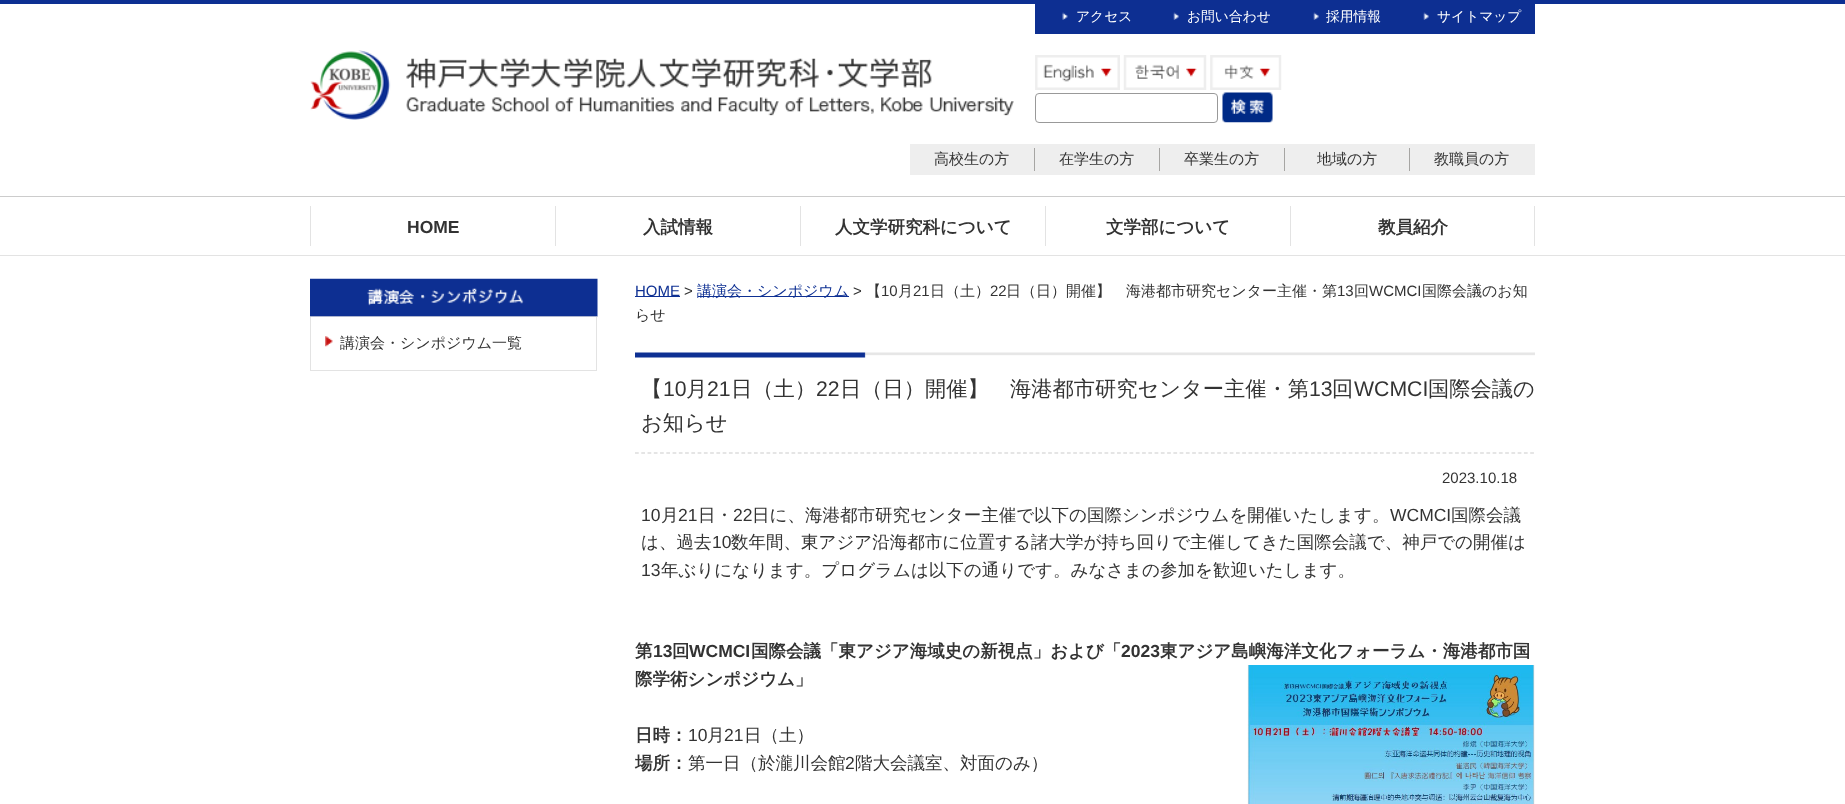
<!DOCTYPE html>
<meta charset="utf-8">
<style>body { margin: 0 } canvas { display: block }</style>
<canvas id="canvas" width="1845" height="804"></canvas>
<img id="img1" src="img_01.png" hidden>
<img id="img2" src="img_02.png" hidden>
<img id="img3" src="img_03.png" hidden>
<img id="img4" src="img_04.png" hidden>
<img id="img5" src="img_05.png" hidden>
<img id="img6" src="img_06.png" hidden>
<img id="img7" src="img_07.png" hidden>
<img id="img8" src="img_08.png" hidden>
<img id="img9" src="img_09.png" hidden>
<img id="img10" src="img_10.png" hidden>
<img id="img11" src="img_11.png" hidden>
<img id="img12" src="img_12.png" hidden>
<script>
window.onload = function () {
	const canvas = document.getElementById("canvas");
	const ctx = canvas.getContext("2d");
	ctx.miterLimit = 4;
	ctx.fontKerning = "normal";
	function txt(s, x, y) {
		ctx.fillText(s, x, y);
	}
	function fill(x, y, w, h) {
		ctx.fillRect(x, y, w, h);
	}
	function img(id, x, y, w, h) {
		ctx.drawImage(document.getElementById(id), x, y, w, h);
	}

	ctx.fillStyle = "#FFFFFF";
	fill(0, 0, 1845, 804);
	ctx.fillStyle = "#0D2F92";
	fill(0, 0, 1845, 4);
	img("img1", 310, 50, 704, 70);
	fill(1035, 4, 500, 30);
	img("img2", 1062, 12, 6, 8);
	img("img3", 1173, 12, 6, 8);
	img("img4", 1313, 12, 6, 8);
	img("img3", 1423, 12, 6, 8);
	img("img5", 1035, 55, 85, 35);
	img("img6", 1123, 55, 84, 35);
	img("img7", 1210, 55, 72, 35);
	ctx.beginPath();
	ctx.roundRect(1035.5, 93.5, 182, 29, 3.5);
	ctx.strokeStyle = "#999999";
	ctx.stroke();
	img("img8", 1222, 92, 51, 31);
	ctx.fillStyle = "#EEEEEE";
	fill(910, 144, 625, 31);
	ctx.fillStyle = "#A6A5A3";
	fill(1034, 148, 1, 23);
	fill(1159, 148, 1, 23);
	fill(1284, 148, 1, 23);
	fill(1409, 148, 1, 23);
	ctx.fillStyle = "#CCCCCC";
	fill(0, 196, 1845, 1);
	ctx.fillStyle = "#E3E3E3";
	fill(0, 255, 1845, 1);
	fill(310, 206, 1, 40);
	fill(555, 206, 1, 40);
	fill(800, 206, 1, 40);
	fill(1045, 206, 1, 40);
	fill(1534, 206, 1, 40);
	fill(1290, 206, 1, 40);
	fill(310, 316, 288, 1);
	fill(596, 316, 1, 55);
	fill(310, 316, 1, 55);
	img("img9", 310, 278, 288, 39);
	fill(311, 370, 285, 1);
	img("img10", 325, 336, 8, 11);
	ctx.fillStyle = "#0E3093";
	fill(635, 296, 45, 1);
	fill(698, 296, 151, 1);
	img("img11", 635, 352, 900, 6);
	ctx.beginPath();
	ctx.moveTo(635, 453);
	ctx.lineTo(1535, 453);
	ctx.strokeStyle = "#CCCCCC";
	ctx.lineWidth = 1.2;
	ctx.setLineDash([3.75, 2.51]);
	ctx.stroke();
	img("img12", 1247, 665, 288, 139);
	ctx.font = "500 13.75px WenQuanYi Zen Hei";
	ctx.fillStyle = "#FFFFFF";
	txt("アクセス", 1076, 21);
	txt("お問い合わせ", 1187, 21);
	txt("採用情報", 1326, 21);
	txt("サイトマップ", 1437, 21);
	ctx.font = "500 15px WenQuanYi Zen Hei";
	ctx.fillStyle = "#333333";
	txt("高校生の方", 934, 164);
	txt("在学生の方", 1059, 164);
	txt("卒業生の方", 1184, 164);
	txt("地域の方", 1317, 164);
	txt("教職員の方", 1434, 164);
	ctx.font = "bold 17.5px Liberation Sans";
	txt("HOME", 407, 233);
	ctx.font = "bold 17.5px WenQuanYi Zen Hei";
	txt("入試情報", 643, 233);
	txt("人文学研究科について", 835, 233);
	txt("文学部について", 1106, 233);
	txt("教員紹介", 1378, 233);
	ctx.font = "500 15px WenQuanYi Zen Hei";
	txt("講演会・シンポジウム一覧", 340, 348);
	ctx.font = "15px Liberation Sans";
	ctx.fillStyle = "#0E3093";
	txt("HOME", 635, 296);
	ctx.fillStyle = "#333333";
	txt(">", 684, 296);
	ctx.font = "500 15px WenQuanYi Zen Hei";
	ctx.fillStyle = "#0E3093";
	txt("講演会・シンポジウム", 697, 296);
	ctx.font = "15px Liberation Sans";
	ctx.fillStyle = "#333333";
	txt(">", 853, 296);
	ctx.font = "500 15px WenQuanYi Zen Hei";
	txt("【", 866, 296);
	ctx.font = "15px Liberation Sans";
	txt("10", 881, 296);
	ctx.font = "500 15px WenQuanYi Zen Hei";
	txt("月", 898, 296);
	ctx.font = "15px Liberation Sans";
	txt("21", 913, 296);
	ctx.font = "500 15px WenQuanYi Zen Hei";
	txt("日（土）", 930, 296);
	ctx.font = "15px Liberation Sans";
	txt("22", 990, 296);
	ctx.font = "500 15px WenQuanYi Zen Hei";
	txt("日（日）開催】　海港都市研究センター主催・第", 1006, 296);
	ctx.font = "15px Liberation Sans";
	txt("13", 1337, 296);
	ctx.font = "500 15px WenQuanYi Zen Hei";
	txt("回", 1354, 296);
	ctx.font = "15px Liberation Sans";
	txt("WCMCI", 1369, 296);
	ctx.font = "500 15px WenQuanYi Zen Hei";
	txt("国際会議のお知", 1422, 296);
	txt("らせ", 635, 320);
	ctx.font = "500 21.25px WenQuanYi Zen Hei";
	txt("【", 641, 396);
	ctx.font = "21.25px Liberation Sans";
	txt("10", 663, 396);
	ctx.font = "500 21.25px WenQuanYi Zen Hei";
	txt("月", 686, 396);
	ctx.font = "21.25px Liberation Sans";
	txt("21", 707, 396);
	ctx.font = "500 21.25px WenQuanYi Zen Hei";
	txt("日（土）", 731, 396);
	ctx.font = "21.25px Liberation Sans";
	txt("22", 816, 396);
	ctx.font = "500 21.25px WenQuanYi Zen Hei";
	txt("日（日）開催】　海港都市研究センター主催・第", 840, 396);
	ctx.font = "21.25px Liberation Sans";
	txt("13", 1309, 396);
	ctx.font = "500 21.25px WenQuanYi Zen Hei";
	txt("回", 1332, 396);
	ctx.font = "21.25px Liberation Sans";
	txt("WCMCI", 1354, 396);
	ctx.font = "500 21.25px WenQuanYi Zen Hei";
	txt("国際会議の", 1428, 396);
	txt("お知らせ", 641, 430);
	ctx.font = "15px Liberation Sans";
	txt("2023.10.18", 1442, 483);
	ctx.font = "17.5px Liberation Sans";
	txt("10", 641, 521);
	ctx.font = "500 17.5px WenQuanYi Zen Hei";
	txt("月", 661, 521);
	ctx.font = "17.5px Liberation Sans";
	txt("21", 678, 521);
	ctx.font = "500 17.5px WenQuanYi Zen Hei";
	txt("日・", 698, 521);
	ctx.font = "17.5px Liberation Sans";
	txt("22", 733, 521);
	ctx.font = "500 17.5px WenQuanYi Zen Hei";
	txt("日に、海港都市研究センター主催で以下の国際シンポジウムを開催いたします。", 752, 521);
	ctx.font = "17.5px Liberation Sans";
	txt("WCMCI", 1390, 521);
	ctx.font = "500 17.5px WenQuanYi Zen Hei";
	txt("国際会議", 1451, 521);
	txt("は、過去", 641, 548);
	ctx.font = "17.5px Liberation Sans";
	txt("10", 712, 548);
	ctx.font = "500 17.5px WenQuanYi Zen Hei";
	txt("数年間、東アジア沿海都市に位置する諸大学が持ち回りで主催してきた国際会議で、神戸での開催は", 731, 548);
	ctx.font = "17.5px Liberation Sans";
	txt("13", 641, 576);
	ctx.font = "500 17.5px WenQuanYi Zen Hei";
	txt("年ぶりになります。プログラムは以下の通りです。みなさまの参加を歓迎いたします。", 661, 576);
	ctx.font = "bold 17.5px WenQuanYi Zen Hei";
	txt("第", 635, 657);
	ctx.font = "bold 17.5px Liberation Sans";
	txt("13", 653, 657);
	ctx.font = "bold 17.5px WenQuanYi Zen Hei";
	txt("回", 672, 657);
	ctx.font = "bold 17.5px Liberation Sans";
	txt("WCMCI", 689, 657);
	ctx.font = "bold 17.5px WenQuanYi Zen Hei";
	txt("国際会議「東アジア海域史の新視点」および「", 751, 657);
	ctx.font = "bold 17.5px Liberation Sans";
	txt("2023", 1121, 657);
	ctx.font = "bold 17.5px WenQuanYi Zen Hei";
	txt("東アジア島嶼海洋文化フォーラム・海港都市国", 1160, 657);
	txt("際学術シンポジウム」", 635, 685);
	txt("日時：", 635, 741);
	ctx.font = "17.5px Liberation Sans";
	txt("10", 688, 741);
	ctx.font = "500 17.5px WenQuanYi Zen Hei";
	txt("月", 707, 741);
	ctx.font = "17.5px Liberation Sans";
	txt("21", 724, 741);
	ctx.font = "500 17.5px WenQuanYi Zen Hei";
	txt("日（土）", 744, 741);
	ctx.font = "bold 17.5px WenQuanYi Zen Hei";
	txt("場所：", 635, 769);
	ctx.font = "500 17.5px WenQuanYi Zen Hei";
	txt("第一日（於瀧川会館", 688, 769);
	ctx.font = "17.5px Liberation Sans";
	txt("2", 845, 769);
	ctx.font = "500 17.5px WenQuanYi Zen Hei";
	txt("階大会議室、対面のみ）", 855, 769);
};
</script>
